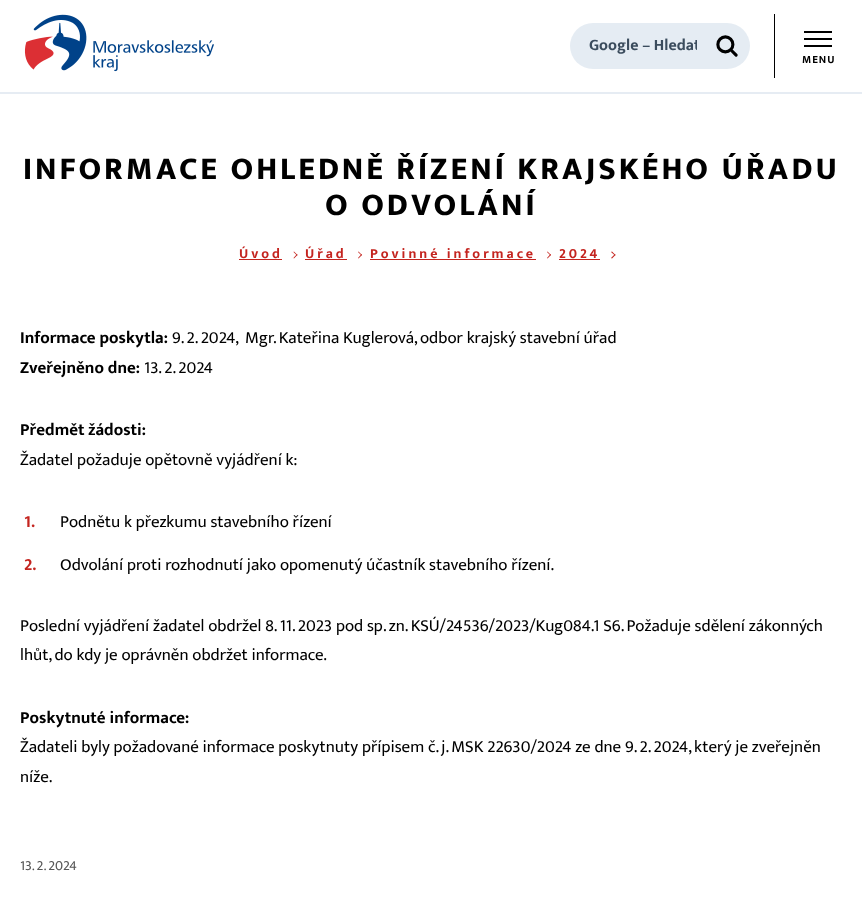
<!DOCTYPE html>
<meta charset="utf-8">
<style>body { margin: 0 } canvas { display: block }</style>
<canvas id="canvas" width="862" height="904"></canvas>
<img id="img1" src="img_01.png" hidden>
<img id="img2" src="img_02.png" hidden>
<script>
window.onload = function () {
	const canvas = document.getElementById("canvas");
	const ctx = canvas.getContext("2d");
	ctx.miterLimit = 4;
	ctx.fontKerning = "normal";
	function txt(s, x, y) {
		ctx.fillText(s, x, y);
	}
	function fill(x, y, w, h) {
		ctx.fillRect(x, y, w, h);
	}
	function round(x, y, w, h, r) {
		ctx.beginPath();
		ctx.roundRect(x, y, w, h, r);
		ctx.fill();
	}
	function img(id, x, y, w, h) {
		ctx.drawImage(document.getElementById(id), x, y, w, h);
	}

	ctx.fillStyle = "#FFFFFF";
	fill(0, 0, 862, 904);
	ctx.fillStyle = "#E6ECF3";
	fill(0, 92, 862, 2);
	img("img1", 24, 14, 190, 58);
	ctx.fillStyle = "#E5ECF3";
	round(570, 23, 180, 46, 23);
	img("img2", 716, 35, 22, 22);
	ctx.fillStyle = "#000000";
	fill(774, 14, 1, 64);
	fill(804, 31, 28, 2);
	fill(804, 38, 28, 2);
	fill(804, 45, 28, 2);
	ctx.fillStyle = "#C4241F";
	fill(239, 259, 43, 1);
	ctx.beginPath();
	ctx.moveTo(294, 251.5);
	ctx.lineTo(297.5, 255);
	ctx.lineTo(297, 255.5);
	ctx.lineTo(293.5, 252);
	ctx.closePath();
	ctx.fill();
	ctx.beginPath();
	ctx.moveTo(297, 254);
	ctx.lineTo(297.5, 255);
	ctx.lineTo(294, 258.5);
	ctx.lineTo(293.5, 258);
	ctx.closePath();
	ctx.fill();
	fill(305, 259, 42, 1);
	ctx.beginPath();
	ctx.moveTo(358.5, 251.5);
	ctx.lineTo(362, 255);
	ctx.lineTo(361.5, 255.5);
	ctx.lineTo(358, 252);
	ctx.closePath();
	ctx.fill();
	ctx.beginPath();
	ctx.moveTo(361.5, 254);
	ctx.lineTo(362, 255);
	ctx.lineTo(358.5, 258.5);
	ctx.lineTo(358, 258);
	ctx.closePath();
	ctx.fill();
	fill(370, 259, 166, 1);
	ctx.beginPath();
	ctx.moveTo(547.5, 251.5);
	ctx.lineTo(551, 255);
	ctx.lineTo(550.5, 255.5);
	ctx.lineTo(547, 252);
	ctx.closePath();
	ctx.fill();
	ctx.beginPath();
	ctx.moveTo(550.5, 254);
	ctx.lineTo(551, 255);
	ctx.lineTo(547.5, 258.5);
	ctx.lineTo(547, 258);
	ctx.closePath();
	ctx.fill();
	fill(559, 259, 41, 1);
	ctx.beginPath();
	ctx.moveTo(612, 251.5);
	ctx.lineTo(615.5, 255);
	ctx.lineTo(615, 255.5);
	ctx.lineTo(611, 252);
	ctx.closePath();
	ctx.fill();
	ctx.beginPath();
	ctx.moveTo(615, 254);
	ctx.lineTo(615.5, 255);
	ctx.lineTo(612, 258.5);
	ctx.lineTo(611, 258);
	ctx.closePath();
	ctx.fill();
	ctx.save();
	ctx.beginPath();
	ctx.rect(589, 32, 108, 27);
	ctx.clip();
	ctx.font = "bold 16px Mukta Vaani";
	ctx.fillStyle = "#3B4C5D";
	txt("Google – Hledat", 589, 50);
	ctx.restore();
	ctx.letterSpacing = "1px";
	ctx.font = "bold 11px Mukta Vaani";
	ctx.fillStyle = "#000000";
	txt("MENU", 802, 63);
	ctx.letterSpacing = "3px";
	ctx.font = "800 32px Mukta Vaani";
	txt("INFORMACE OHLEDNĚ ŘÍZENÍ KRAJSKÉHO ÚŘADU", 23, 179);
	txt("O ODVOLÁNÍ", 325, 215);
	ctx.font = "bold 14px Mukta Vaani";
	ctx.fillStyle = "#C4241F";
	txt("Úvod", 239, 258);
	txt("Úřad", 305, 258);
	txt("Povinné informace", 370, 258);
	txt("2024", 559, 258);
	ctx.letterSpacing = "0px";
	ctx.font = "bold 17px Mukta Vaani";
	ctx.fillStyle = "#000000";
	txt("Informace poskytla:", 20, 343);
	ctx.font = "17px Mukta Vaani";
	txt("9. 2. 2024,", 172, 343);
	txt("Mgr. Kateřina Kuglerová, odbor krajský stavební úřad", 245, 343);
	ctx.font = "bold 17px Mukta Vaani";
	txt("Zveřejněno dne:", 20, 373);
	ctx.font = "17px Mukta Vaani";
	txt("13. 2. 2024", 144, 373);
	ctx.font = "bold 17px Mukta Vaani";
	txt("Předmět žádosti:", 20, 435);
	ctx.font = "17px Mukta Vaani";
	txt("Žadatel požaduje opětovně vyjádření k:", 20, 465);
	ctx.font = "bold 17px Mukta Vaani";
	ctx.fillStyle = "#C4241F";
	txt("1.", 24, 527);
	ctx.font = "17px Mukta Vaani";
	ctx.fillStyle = "#000000";
	txt("Podnětu k přezkumu stavebního řízení", 60, 527);
	ctx.font = "bold 17px Mukta Vaani";
	ctx.fillStyle = "#C4241F";
	txt("2.", 24, 570);
	ctx.font = "17px Mukta Vaani";
	ctx.fillStyle = "#000000";
	txt("Odvolání proti rozhodnutí jako opomenutý účastník stavebního řízení.", 60, 570);
	txt("Poslední vyjádření žadatel obdržel 8. 11. 2023 pod sp. zn. KSÚ/24536/2023/Kug084.1 S6. Požaduje sdělení zákonných", 20, 631);
	txt("lhůt, do kdy je oprávněn obdržet informace.", 20, 660);
	ctx.font = "bold 17px Mukta Vaani";
	txt("Poskytnuté informace:", 20, 723);
	ctx.font = "17px Mukta Vaani";
	txt("Žadateli byly požadované informace poskytnuty přípisem č. j. MSK 22630/2024 ze dne 9. 2. 2024, který je zveřejněn", 20, 752);
	txt("níže.", 20, 782);
	ctx.font = "14px Mukta Vaani";
	ctx.fillStyle = "#565656";
	txt("13. 2. 2024", 20, 870);
};
</script>
